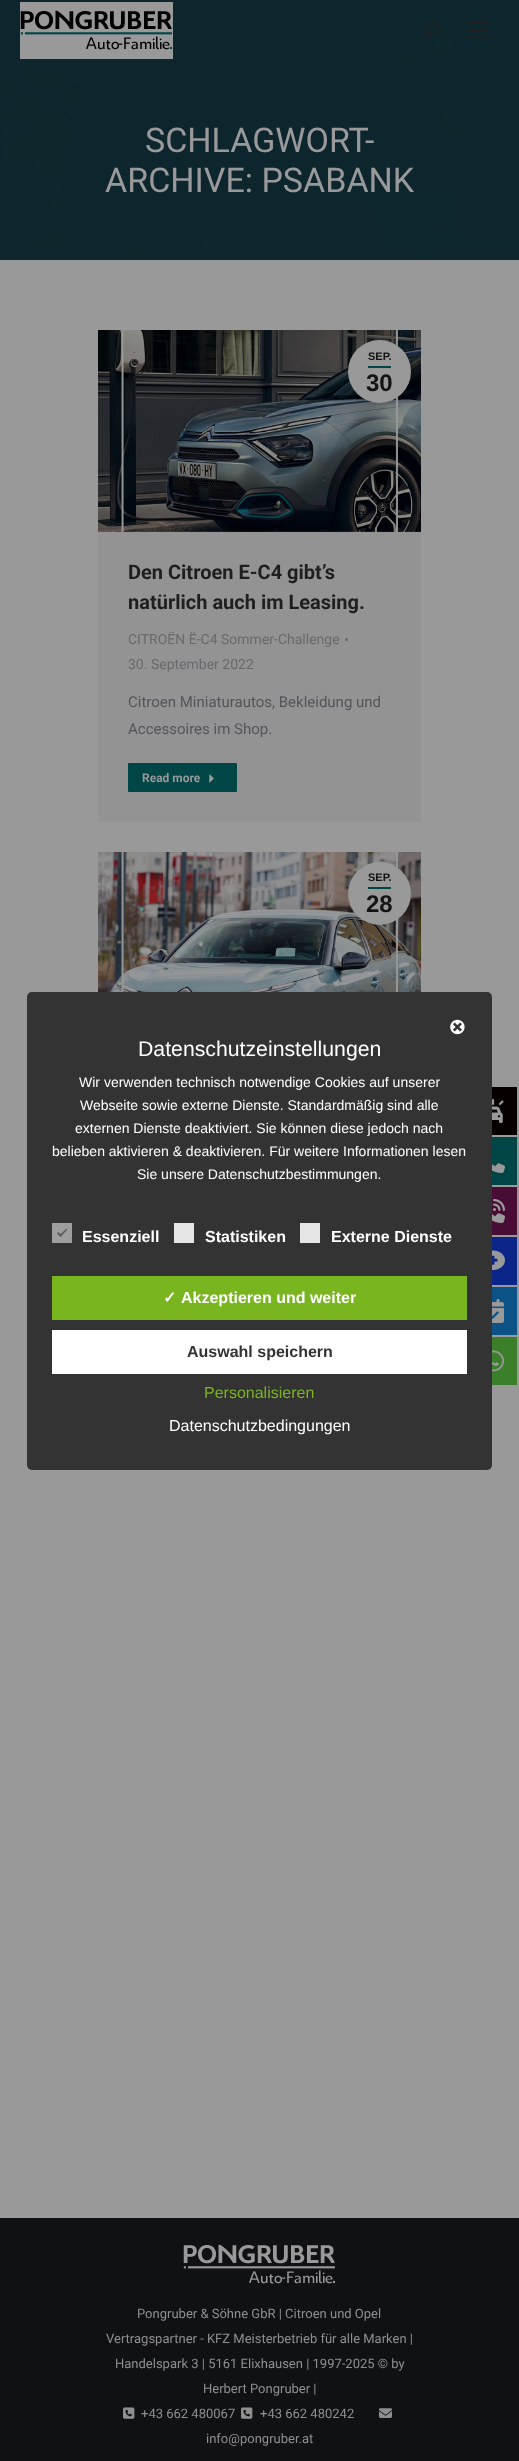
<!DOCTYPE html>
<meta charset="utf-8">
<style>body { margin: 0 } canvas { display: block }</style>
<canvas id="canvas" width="519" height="2461"></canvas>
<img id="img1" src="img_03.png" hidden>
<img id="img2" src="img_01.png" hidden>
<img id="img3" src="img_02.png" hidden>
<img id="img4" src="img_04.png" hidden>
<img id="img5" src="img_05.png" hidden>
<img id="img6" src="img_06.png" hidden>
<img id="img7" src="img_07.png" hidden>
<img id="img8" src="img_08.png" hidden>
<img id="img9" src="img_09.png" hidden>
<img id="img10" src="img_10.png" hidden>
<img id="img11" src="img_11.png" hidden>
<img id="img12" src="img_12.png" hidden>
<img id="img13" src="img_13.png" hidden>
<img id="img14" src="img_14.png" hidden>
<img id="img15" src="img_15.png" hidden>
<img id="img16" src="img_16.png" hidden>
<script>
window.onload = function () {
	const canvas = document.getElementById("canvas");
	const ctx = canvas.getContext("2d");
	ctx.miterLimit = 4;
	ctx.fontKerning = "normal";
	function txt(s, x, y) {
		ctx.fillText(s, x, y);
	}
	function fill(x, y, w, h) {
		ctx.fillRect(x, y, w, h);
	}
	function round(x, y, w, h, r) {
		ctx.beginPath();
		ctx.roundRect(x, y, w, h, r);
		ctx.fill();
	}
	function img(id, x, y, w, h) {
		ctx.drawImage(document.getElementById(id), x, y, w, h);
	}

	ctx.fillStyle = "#101113";
	fill(0, 0, 519, 2461);
	img("img1", 0, 0, 519, 260);
	img("img2", 20, 2, 153, 57);
	img("img3", 423, 22, 16, 16);
	ctx.fillStyle = "#1F1F1F";
	fill(468, 22, 22, 2);
	fill(468, 29, 22, 2);
	fill(468, 36, 22, 2);
	ctx.fillStyle = "#999999";
	fill(0, 260, 519, 1958);
	ctx.fillStyle = "#939393";
	fill(98, 531, 323, 291);
	img("img4", 98, 330, 323, 202);
	ctx.fillStyle = "#999999";
	ctx.beginPath();
	ctx.arc(379.5, 371.5, 31.5, 0, Math.PI * 2);
	ctx.fill();
	ctx.fillStyle = "#004647";
	fill(368, 366, 23, 2);
	ctx.fillStyle = "#68696B";
	ctx.beginPath();
	ctx.arc(346.5, 639.5, 1.5, 0, Math.PI * 2);
	ctx.fill();
	ctx.fillStyle = "#004647";
	round(128, 763, 109, 29, 1);
	img("img5", 209, 774, 5, 9);
	img("img6", 98, 852, 323, 140);
	ctx.fillStyle = "#999999";
	ctx.beginPath();
	ctx.arc(379.5, 893.5, 31.5, 0, Math.PI * 2);
	ctx.fill();
	ctx.fillStyle = "#004647";
	fill(368, 887, 23, 2);
	img("img7", 183, 2244, 152, 40);
	img("img8", 123, 2407, 12, 12);
	img("img8", 241, 2407, 12, 12);
	img("img9", 379, 2408, 13, 10);
	ctx.fillStyle = "#333333";
	round(27, 992, 465, 478, 5);
	img("img10", 450, 1019, 15, 16);
	ctx.fillStyle = "#9E9E9E";
	fill(52, 1223, 20, 20);
	ctx.fillStyle = "#5E5E5E";
	ctx.beginPath();
	ctx.moveTo(66.5, 1228.5);
	ctx.lineTo(67.5, 1229.5);
	ctx.lineTo(60.5, 1237);
	ctx.lineTo(59, 1235.5);
	ctx.closePath();
	ctx.fill();
	ctx.beginPath();
	ctx.moveTo(58.5, 1232);
	ctx.lineTo(62, 1235.5);
	ctx.lineTo(60.5, 1237);
	ctx.lineTo(57, 1233.5);
	ctx.closePath();
	ctx.fill();
	ctx.fillStyle = "#E6E6E6";
	fill(174, 1223, 20, 20);
	fill(300, 1223, 20, 20);
	ctx.fillStyle = "#79B51F";
	fill(52, 1276, 415, 44);
	ctx.fillStyle = "#FFFFFF";
	fill(52, 1330, 415, 44);
	ctx.fillStyle = "#060000";
	fill(492, 1087, 25, 48);
	img("img11", 492, 1099, 12, 24);
	ctx.fillStyle = "#004647";
	fill(492, 1137, 25, 48);
	img("img12", 492, 1163, 13, 10);
	ctx.fillStyle = "#490D35";
	fill(492, 1187, 25, 48);
	img("img13", 492, 1199, 13, 24);
	ctx.fillStyle = "#0B2688";
	fill(492, 1237, 25, 48);
	img("img14", 492, 1250, 13, 20);
	ctx.fillStyle = "#0B5386";
	fill(492, 1287, 25, 48);
	img("img15", 492, 1299, 12, 24);
	ctx.fillStyle = "#3C7F2B";
	fill(492, 1337, 25, 48);
	img("img16", 492, 1350, 12, 22);
	ctx.font = "34px Roboto";
	ctx.fillStyle = "#999999";
	txt("SCHLAGWORT-", 145, 152);
	txt("ARCHIVE: PSABANK", 105, 192);
	ctx.font = "bold 11px Liberation Sans";
	ctx.fillStyle = "#141414";
	txt("SEP.", 368, 360);
	ctx.font = "bold 24px Liberation Sans";
	txt("30", 366, 391);
	ctx.font = "bold 20px Roboto";
	ctx.fillStyle = "#1F1F1F";
	txt("Den Citroen E-C4 gibt’s", 128, 579);
	txt("natürlich auch im Leasing.", 128, 609);
	ctx.font = "14px Roboto";
	ctx.fillStyle = "#68696B";
	txt("CITROËN Ë-C4 Sommer-Challenge", 128, 644);
	txt("30. September 2022", 128, 669);
	ctx.font = "15px Roboto";
	ctx.fillStyle = "#535559";
	txt("Citroen Miniaturautos, Bekleidung und", 128, 707);
	txt("Accessoires im Shop.", 128, 734);
	ctx.font = "bold 12px Roboto";
	ctx.fillStyle = "#999999";
	txt("Read more", 142, 782);
	ctx.font = "bold 11px Liberation Sans";
	ctx.fillStyle = "#141414";
	txt("SEP.", 368, 881);
	ctx.font = "bold 24px Liberation Sans";
	txt("28", 366, 912);
	ctx.font = "13px Roboto";
	ctx.fillStyle = "#8F8F8F";
	txt("Pongruber & Söhne GbR | Citroen und Opel", 137, 2318);
	txt("Vertragspartner - KFZ Meisterbetrieb für alle Marken |", 106, 2343);
	txt("Handelspark 3 | 5161 Elixhausen | 1997-2025 © by", 115, 2368);
	txt("Herbert Pongruber |", 203, 2393);
	txt("+43 662 480067", 141, 2418);
	txt("+43 662 480242", 260, 2418);
	txt("info@pongruber.at", 206, 2443);
	ctx.font = "21.25px Liberation Sans";
	ctx.fillStyle = "#FFFFFF";
	txt("Datenschutzeinstellungen", 138, 1056);
	ctx.font = "14px Liberation Sans";
	txt("Wir verwenden technisch notwendige Cookies auf unserer", 79, 1087);
	txt("Webseite sowie externe Dienste. Standardmäßig sind alle", 80, 1110);
	txt("externen Dienste deaktiviert. Sie können diese jedoch nach", 75, 1133);
	txt("belieben aktivieren & deaktivieren. Für weitere Informationen lesen", 52, 1156);
	txt("Sie unsere Datenschutzbestimmungen.", 137, 1179);
	ctx.font = "bold 16px Liberation Sans";
	txt("Essenziell", 82, 1242);
	txt("Statistiken", 205, 1242);
	txt("Externe Dienste", 331, 1242);
	ctx.font = "bold 16px DejaVu Sans";
	txt("✓", 163, 1303);
	ctx.font = "bold 16px Liberation Sans";
	txt("Akzeptieren und weiter", 181, 1303);
	ctx.fillStyle = "#333333";
	txt("Auswahl speichern", 187, 1357);
	ctx.font = "16px Liberation Sans";
	ctx.fillStyle = "#79B51F";
	txt("Personalisieren", 204, 1398);
	ctx.fillStyle = "#FFFFFF";
	txt("Datenschutzbedingungen", 169, 1431);
};
</script>
